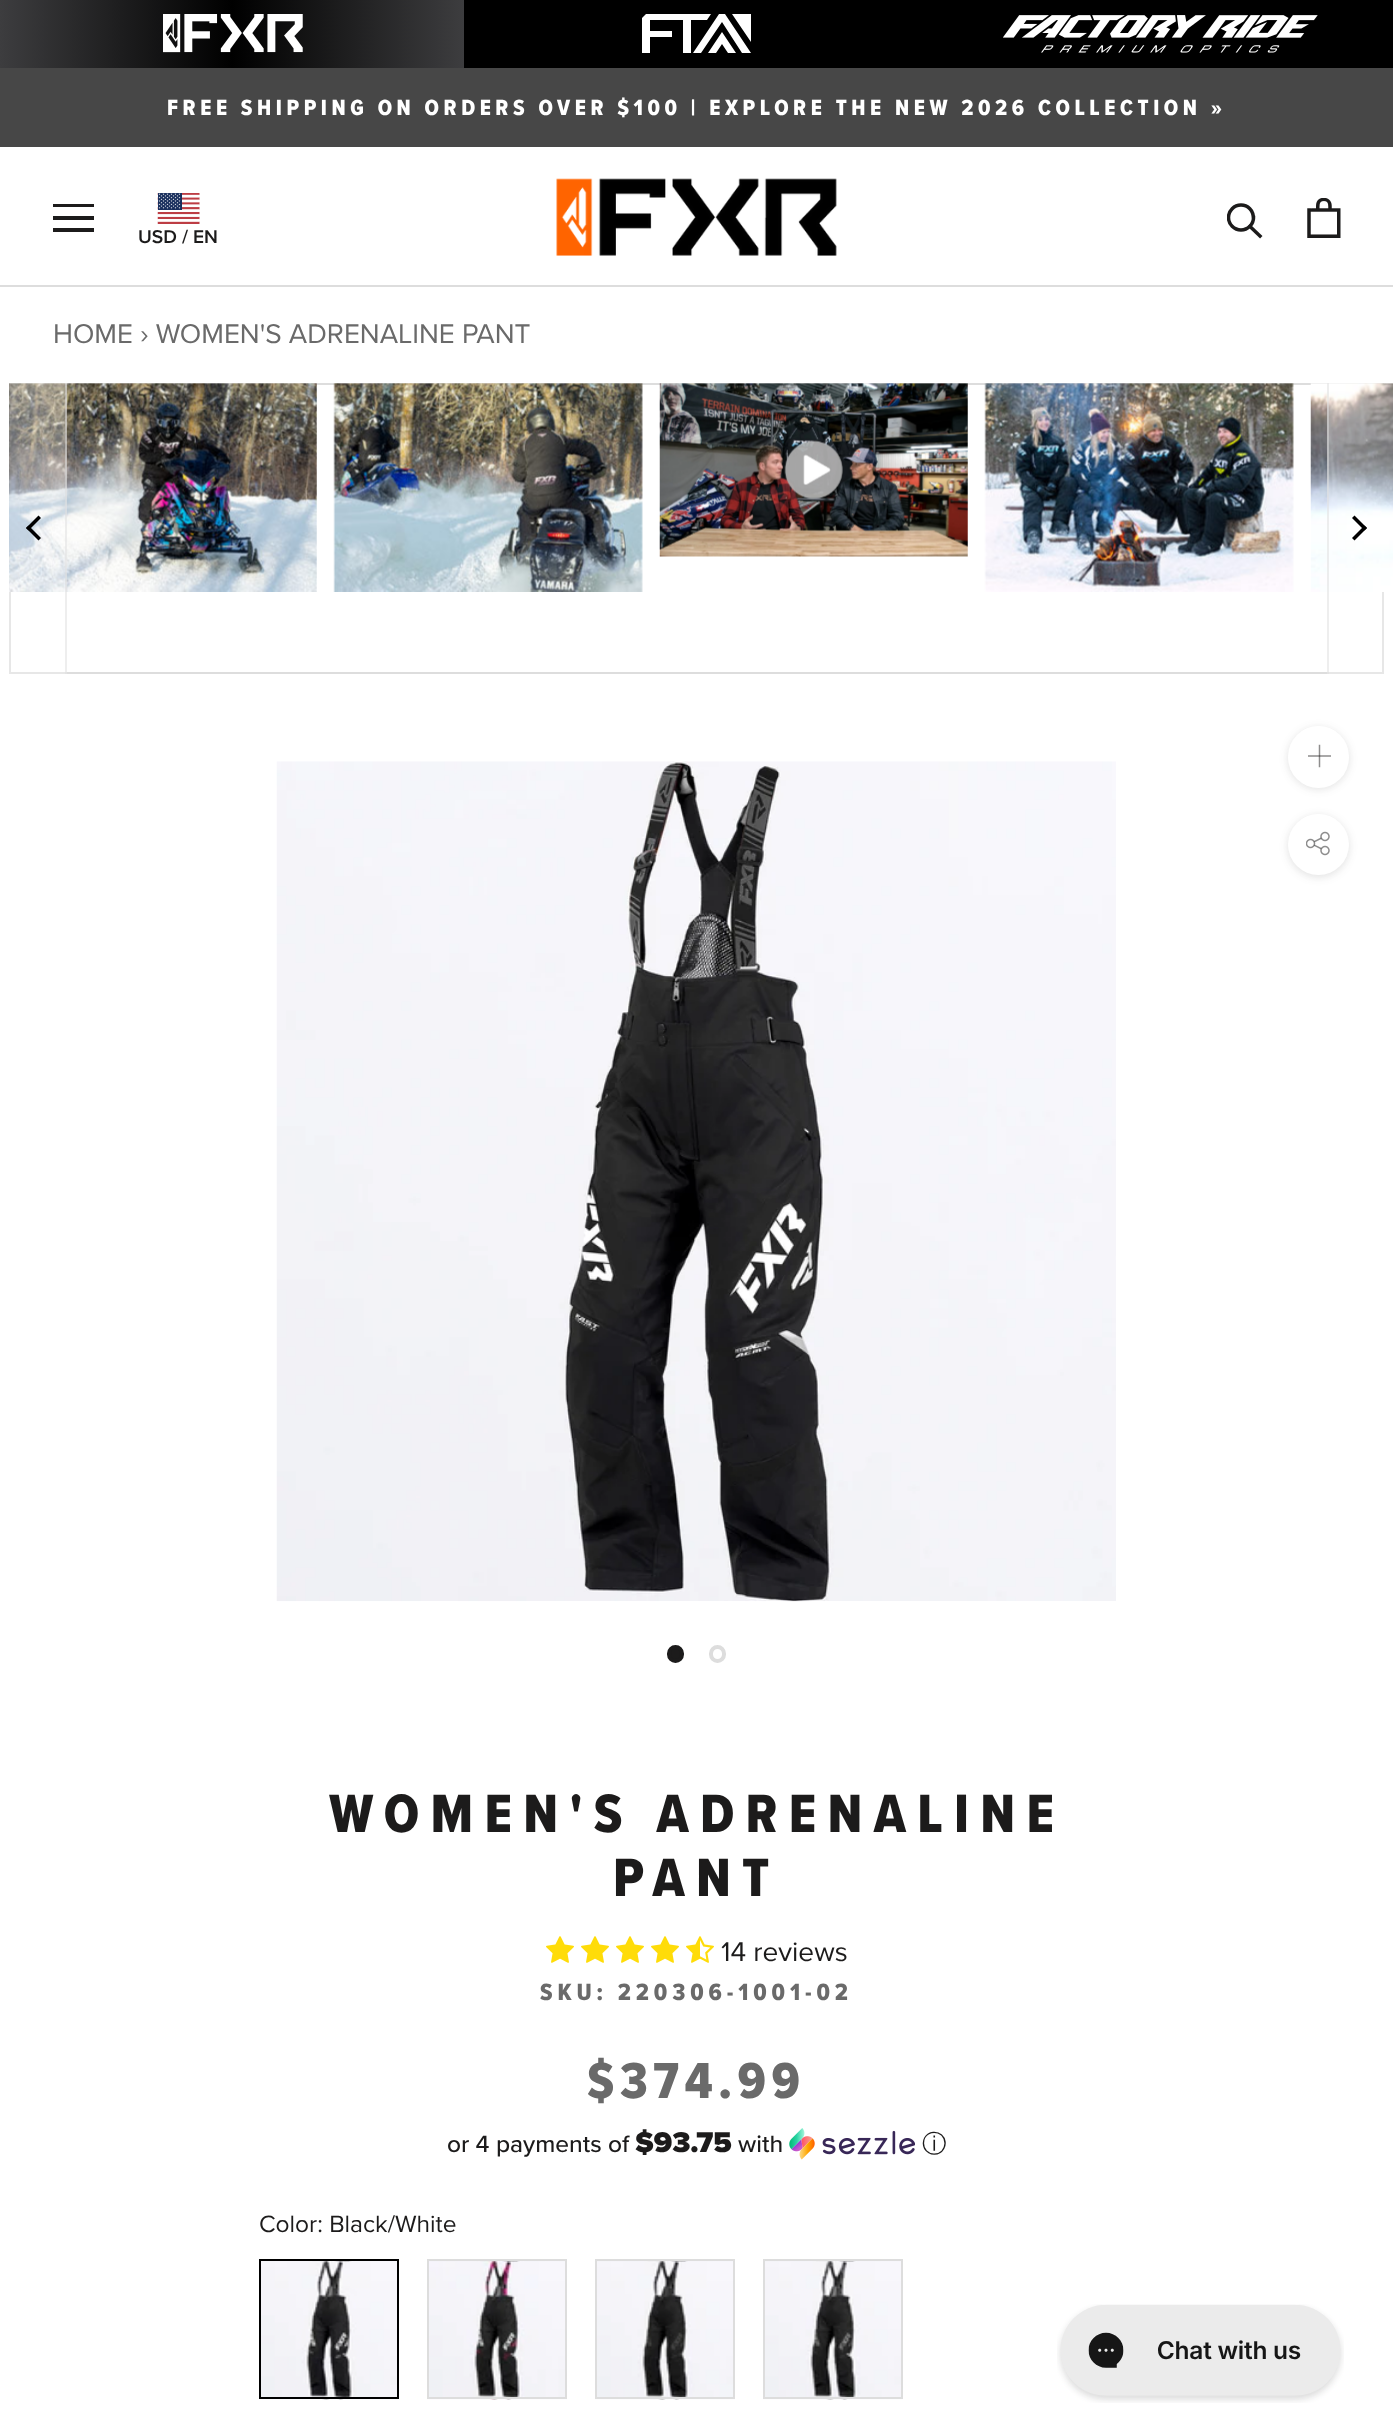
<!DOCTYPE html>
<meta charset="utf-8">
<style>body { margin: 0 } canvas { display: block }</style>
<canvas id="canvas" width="1393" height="2436"></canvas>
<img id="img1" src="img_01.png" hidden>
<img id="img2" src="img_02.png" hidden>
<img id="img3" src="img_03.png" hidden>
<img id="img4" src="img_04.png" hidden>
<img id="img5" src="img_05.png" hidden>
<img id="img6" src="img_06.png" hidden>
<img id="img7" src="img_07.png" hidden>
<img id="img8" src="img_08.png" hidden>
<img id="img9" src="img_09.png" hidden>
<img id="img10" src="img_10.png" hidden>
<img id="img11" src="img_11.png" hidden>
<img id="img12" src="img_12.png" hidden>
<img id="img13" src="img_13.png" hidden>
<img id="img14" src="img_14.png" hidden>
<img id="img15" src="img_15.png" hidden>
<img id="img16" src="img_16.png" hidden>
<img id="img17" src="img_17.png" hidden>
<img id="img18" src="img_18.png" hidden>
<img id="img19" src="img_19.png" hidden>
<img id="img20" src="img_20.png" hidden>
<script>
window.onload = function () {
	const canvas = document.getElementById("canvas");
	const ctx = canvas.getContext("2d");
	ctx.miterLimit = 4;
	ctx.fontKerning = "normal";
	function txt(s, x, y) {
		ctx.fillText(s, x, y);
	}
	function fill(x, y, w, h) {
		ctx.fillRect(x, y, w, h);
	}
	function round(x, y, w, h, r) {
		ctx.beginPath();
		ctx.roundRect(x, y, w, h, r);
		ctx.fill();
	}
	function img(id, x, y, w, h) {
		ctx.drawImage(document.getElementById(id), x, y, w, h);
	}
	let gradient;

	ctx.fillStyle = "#FFFFFF";
	fill(0, 0, 1393, 2436);
	gradient = ctx.createLinearGradient(0, 34, 464, 34);
	gradient.addColorStop(0, "#3D3D3F");
	gradient.addColorStop(0.5, "#000000");
	gradient.addColorStop(1, "#3D3D3F");
	ctx.fillStyle = gradient;
	fill(0, 0, 464, 68);
	img("img1", 163, 14, 140, 39);
	ctx.fillStyle = "#000000";
	fill(464, 0, 929, 68);
	ctx.fillStyle = "#FFFFFF";
	ctx.beginPath();
	ctx.moveTo(725, 14);
	ctx.lineTo(719, 14);
	ctx.lineTo(693, 53);
	ctx.lineTo(701, 53);
	ctx.lineTo(722, 22);
	ctx.lineTo(742, 53);
	ctx.lineTo(751, 53);
	ctx.closePath();
	ctx.fill();
	ctx.beginPath();
	ctx.moveTo(679, 14);
	ctx.lineTo(646, 14);
	ctx.lineTo(642, 18);
	ctx.lineTo(642, 53);
	ctx.lineTo(650, 53);
	ctx.lineTo(650, 37);
	ctx.lineTo(672, 37);
	ctx.lineTo(672, 31);
	ctx.lineTo(650, 31);
	ctx.lineTo(650, 20);
	ctx.lineTo(683, 20);
	ctx.lineTo(683, 53);
	ctx.lineTo(691, 53);
	ctx.lineTo(691, 20);
	ctx.lineTo(707, 20);
	ctx.lineTo(711, 14);
	ctx.closePath();
	ctx.fill();
	ctx.beginPath();
	ctx.moveTo(722, 32);
	ctx.lineTo(736, 53);
	ctx.lineTo(728, 53);
	ctx.lineTo(722, 44);
	ctx.lineTo(716, 53);
	ctx.lineTo(708, 53);
	ctx.closePath();
	ctx.moveTo(732, 14);
	ctx.lineTo(751, 42);
	ctx.lineTo(751, 14);
	ctx.closePath();
	ctx.fill();
	img("img2", 1003, 15, 315, 38);
	ctx.fillStyle = "#474747";
	fill(0, 68, 1393, 79);
	ctx.fillStyle = "#DDDDDD";
	fill(0, 285, 1393, 2);
	ctx.save();
	ctx.beginPath();
	ctx.rect(53, 203, 42, 30);
	ctx.clip();
	ctx.fillStyle = "#1C1B1B";
	ctx.beginPath();
	ctx.moveTo(52, 232);
	ctx.lineTo(52, 228);
	ctx.lineTo(94, 228);
	ctx.lineTo(94, 232);
	ctx.closePath();
	ctx.moveTo(52, 216);
	ctx.lineTo(94, 216);
	ctx.lineTo(94, 220);
	ctx.lineTo(52, 220);
	ctx.closePath();
	ctx.moveTo(52, 204);
	ctx.lineTo(94, 204);
	ctx.lineTo(94, 207);
	ctx.lineTo(52, 207);
	ctx.closePath();
	ctx.fill();
	ctx.restore();
	img("img3", 157, 193, 43, 31);
	img("img4", 556, 178, 281, 78);
	ctx.beginPath();
	ctx.moveTo(1260, 236);
	ctx.lineTo(1250, 226.5);
	ctx.strokeStyle = "#1C1B1B";
	ctx.lineWidth = 3.5;
	ctx.lineCap = "square";
	ctx.stroke();
	ctx.save();
	ctx.beginPath();
	ctx.rect(1227, 203, 37, 37);
	ctx.clip();
	ctx.beginPath();
	ctx.arc(1241, 217.5, 12.5, 0, Math.PI * 2);
	ctx.stroke();
	ctx.restore();
	img("img5", 1307, 198, 34, 40);
	ctx.strokeStyle = "#DDDDDD";
	ctx.lineWidth = 2;
	ctx.strokeRect(10, 384, 1373, 289);
	img("img6", 9, 383, 308, 209);
	img("img7", 333, 383, 310, 209);
	img("img8", 659, 383, 309, 174);
	img("img9", 984, 383, 310, 209);
	img("img10", 1310, 383, 83, 209);
	ctx.fillStyle = "rgba(255, 255, 255, 0.3)";
	fill(9, 383, 58, 291);
	ctx.fillStyle = "rgba(221, 221, 221, 0.5)";
	fill(65, 383, 2, 291);
	ctx.fillStyle = "#000000";
	ctx.beginPath();
	ctx.moveTo(28.5, 525.5);
	ctx.lineTo(41, 538);
	ctx.lineTo(38.5, 540.5);
	ctx.lineTo(26, 528);
	ctx.closePath();
	ctx.fill();
	ctx.beginPath();
	ctx.moveTo(38.5, 515.5);
	ctx.lineTo(41, 518);
	ctx.lineTo(28.5, 530.5);
	ctx.lineTo(26, 528);
	ctx.closePath();
	ctx.fill();
	ctx.fillStyle = "rgba(255, 255, 255, 0.3)";
	fill(1327, 383, 66, 291);
	ctx.fillStyle = "rgba(221, 221, 221, 0.5)";
	fill(1327, 383, 2, 291);
	ctx.fillStyle = "#000000";
	ctx.beginPath();
	ctx.moveTo(1364.5, 530.5);
	ctx.lineTo(1352, 518);
	ctx.lineTo(1354.5, 515.5);
	ctx.lineTo(1367, 528);
	ctx.closePath();
	ctx.fill();
	ctx.beginPath();
	ctx.moveTo(1354.5, 540.5);
	ctx.lineTo(1352, 538);
	ctx.lineTo(1364.5, 525.5);
	ctx.lineTo(1367, 528);
	ctx.closePath();
	ctx.fill();
	img("img11", 276, 761, 840, 841);
	ctx.fillStyle = "#1C1B1B";
	ctx.beginPath();
	ctx.roundRect(669, 1647, 13, 14, 6.5);
	ctx.fill();
	ctx.strokeStyle = "#1C1B1B";
	ctx.lineWidth = 4;
	ctx.stroke();
	ctx.beginPath();
	ctx.roundRect(711, 1647, 13, 14, 6.5);
	ctx.strokeStyle = "#DDDDDD";
	ctx.stroke();
	ctx.fillStyle = "rgba(54, 54, 54, 0.15)";
	ctx.filter = "blur(4.5px)";
	ctx.beginPath();
	ctx.roundRect(1288, 728, 61, 61, 30.5);
	ctx.fill();
	ctx.filter = "none";
	ctx.fillStyle = "#FFFFFF";
	round(1288, 726, 61, 62, 30.5);
	ctx.beginPath();
	ctx.moveTo(1319.5, 745.5);
	ctx.lineTo(1319.5, 766.5);
	ctx.strokeStyle = "#8E8D8D";
	ctx.lineWidth = 1.5;
	ctx.stroke();
	ctx.fillStyle = "rgba(28, 27, 27, 0.38)";
	fill(1308, 755, 23, 2);
	ctx.fillStyle = "rgba(54, 54, 54, 0.15)";
	ctx.filter = "blur(4.5px)";
	ctx.beginPath();
	ctx.roundRect(1288, 816, 61, 61, 30.5);
	ctx.fill();
	ctx.filter = "none";
	ctx.fillStyle = "#FFFFFF";
	ctx.beginPath();
	ctx.arc(1318.5, 844.5, 30.5, 0, Math.PI * 2);
	ctx.fill();
	img("img12", 1306, 831, 24, 25);
	img("img13", 546, 1936, 28, 27);
	img("img13", 581, 1936, 28, 27);
	img("img13", 616, 1936, 28, 27);
	img("img13", 651, 1936, 28, 27);
	img("img14", 686, 1936, 28, 27);
	img("img15", 789, 2128, 126, 32);
	img("img16", 259, 2261, 140, 139);
	ctx.strokeStyle = "#000000";
	ctx.lineWidth = 2;
	ctx.strokeRect(260, 2260, 138, 138);
	img("img17", 427, 2261, 140, 139);
	ctx.strokeStyle = "#DDDDDD";
	ctx.strokeRect(428, 2260, 138, 138);
	img("img18", 595, 2261, 140, 139);
	ctx.strokeRect(596, 2260, 138, 138);
	img("img19", 763, 2261, 140, 139);
	ctx.strokeRect(764, 2260, 138, 138);
	img("img20", 1057, 2304, 287, 99);
	ctx.letterSpacing = "4.55px";
	ctx.font = "800 22.75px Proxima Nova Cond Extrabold";
	txt("FREE SHIPPING ON ORDERS OVER $100 | EXPLORE THE NEW 2026 COLLECTION »", 167, 115);
	ctx.letterSpacing = "0px";
	ctx.font = "600 19.25px Proxima Nova";
	ctx.fillStyle = "#1C1B1B";
	txt("USD / EN", 138, 243);
	ctx.font = "28px Proxima Nova";
	ctx.fillStyle = "#6A6A6A";
	txt("HOME › WOMEN'S ADRENALINE PANT", 53, 343);
	ctx.letterSpacing = "11.25px";
	ctx.font = "800 56px Proxima Nova Cond Extrabold";
	ctx.fillStyle = "#1C1B1B";
	txt("WOMEN'S ADRENALINE", 329, 1832);
	txt("PANT", 613, 1896);
	ctx.letterSpacing = "0px";
	ctx.font = "28px Proxima Nova";
	txt("14 reviews", 721, 1961);
	ctx.letterSpacing = "4.9px";
	ctx.font = "800 24.5px Proxima Nova Cond Extrabold";
	ctx.fillStyle = "#6A6A6A";
	txt("SKU: 220306-1001-02", 540, 2000);
	ctx.letterSpacing = "5.5px";
	ctx.font = "800 52.5px Proxima Nova Cond Extrabold";
	txt("$374.99", 587, 2098);
	ctx.letterSpacing = "0px";
	ctx.font = "500 24.5px Proxima Nova";
	ctx.fillStyle = "#1C1B1B";
	txt("or 4 payments of", 447, 2152);
	ctx.font = "900 29.5px Proxima Nova";
	txt("$93.75", 635, 2152);
	ctx.font = "500 24.5px Proxima Nova";
	txt("with", 738, 2152);
	ctx.font = "500 24.5px WenQuanYi Zen Hei";
	txt("ⓘ", 922, 2152);
	ctx.font = "24.5px Proxima Nova";
	txt("Color: Black/White", 259, 2232);
};
</script>
